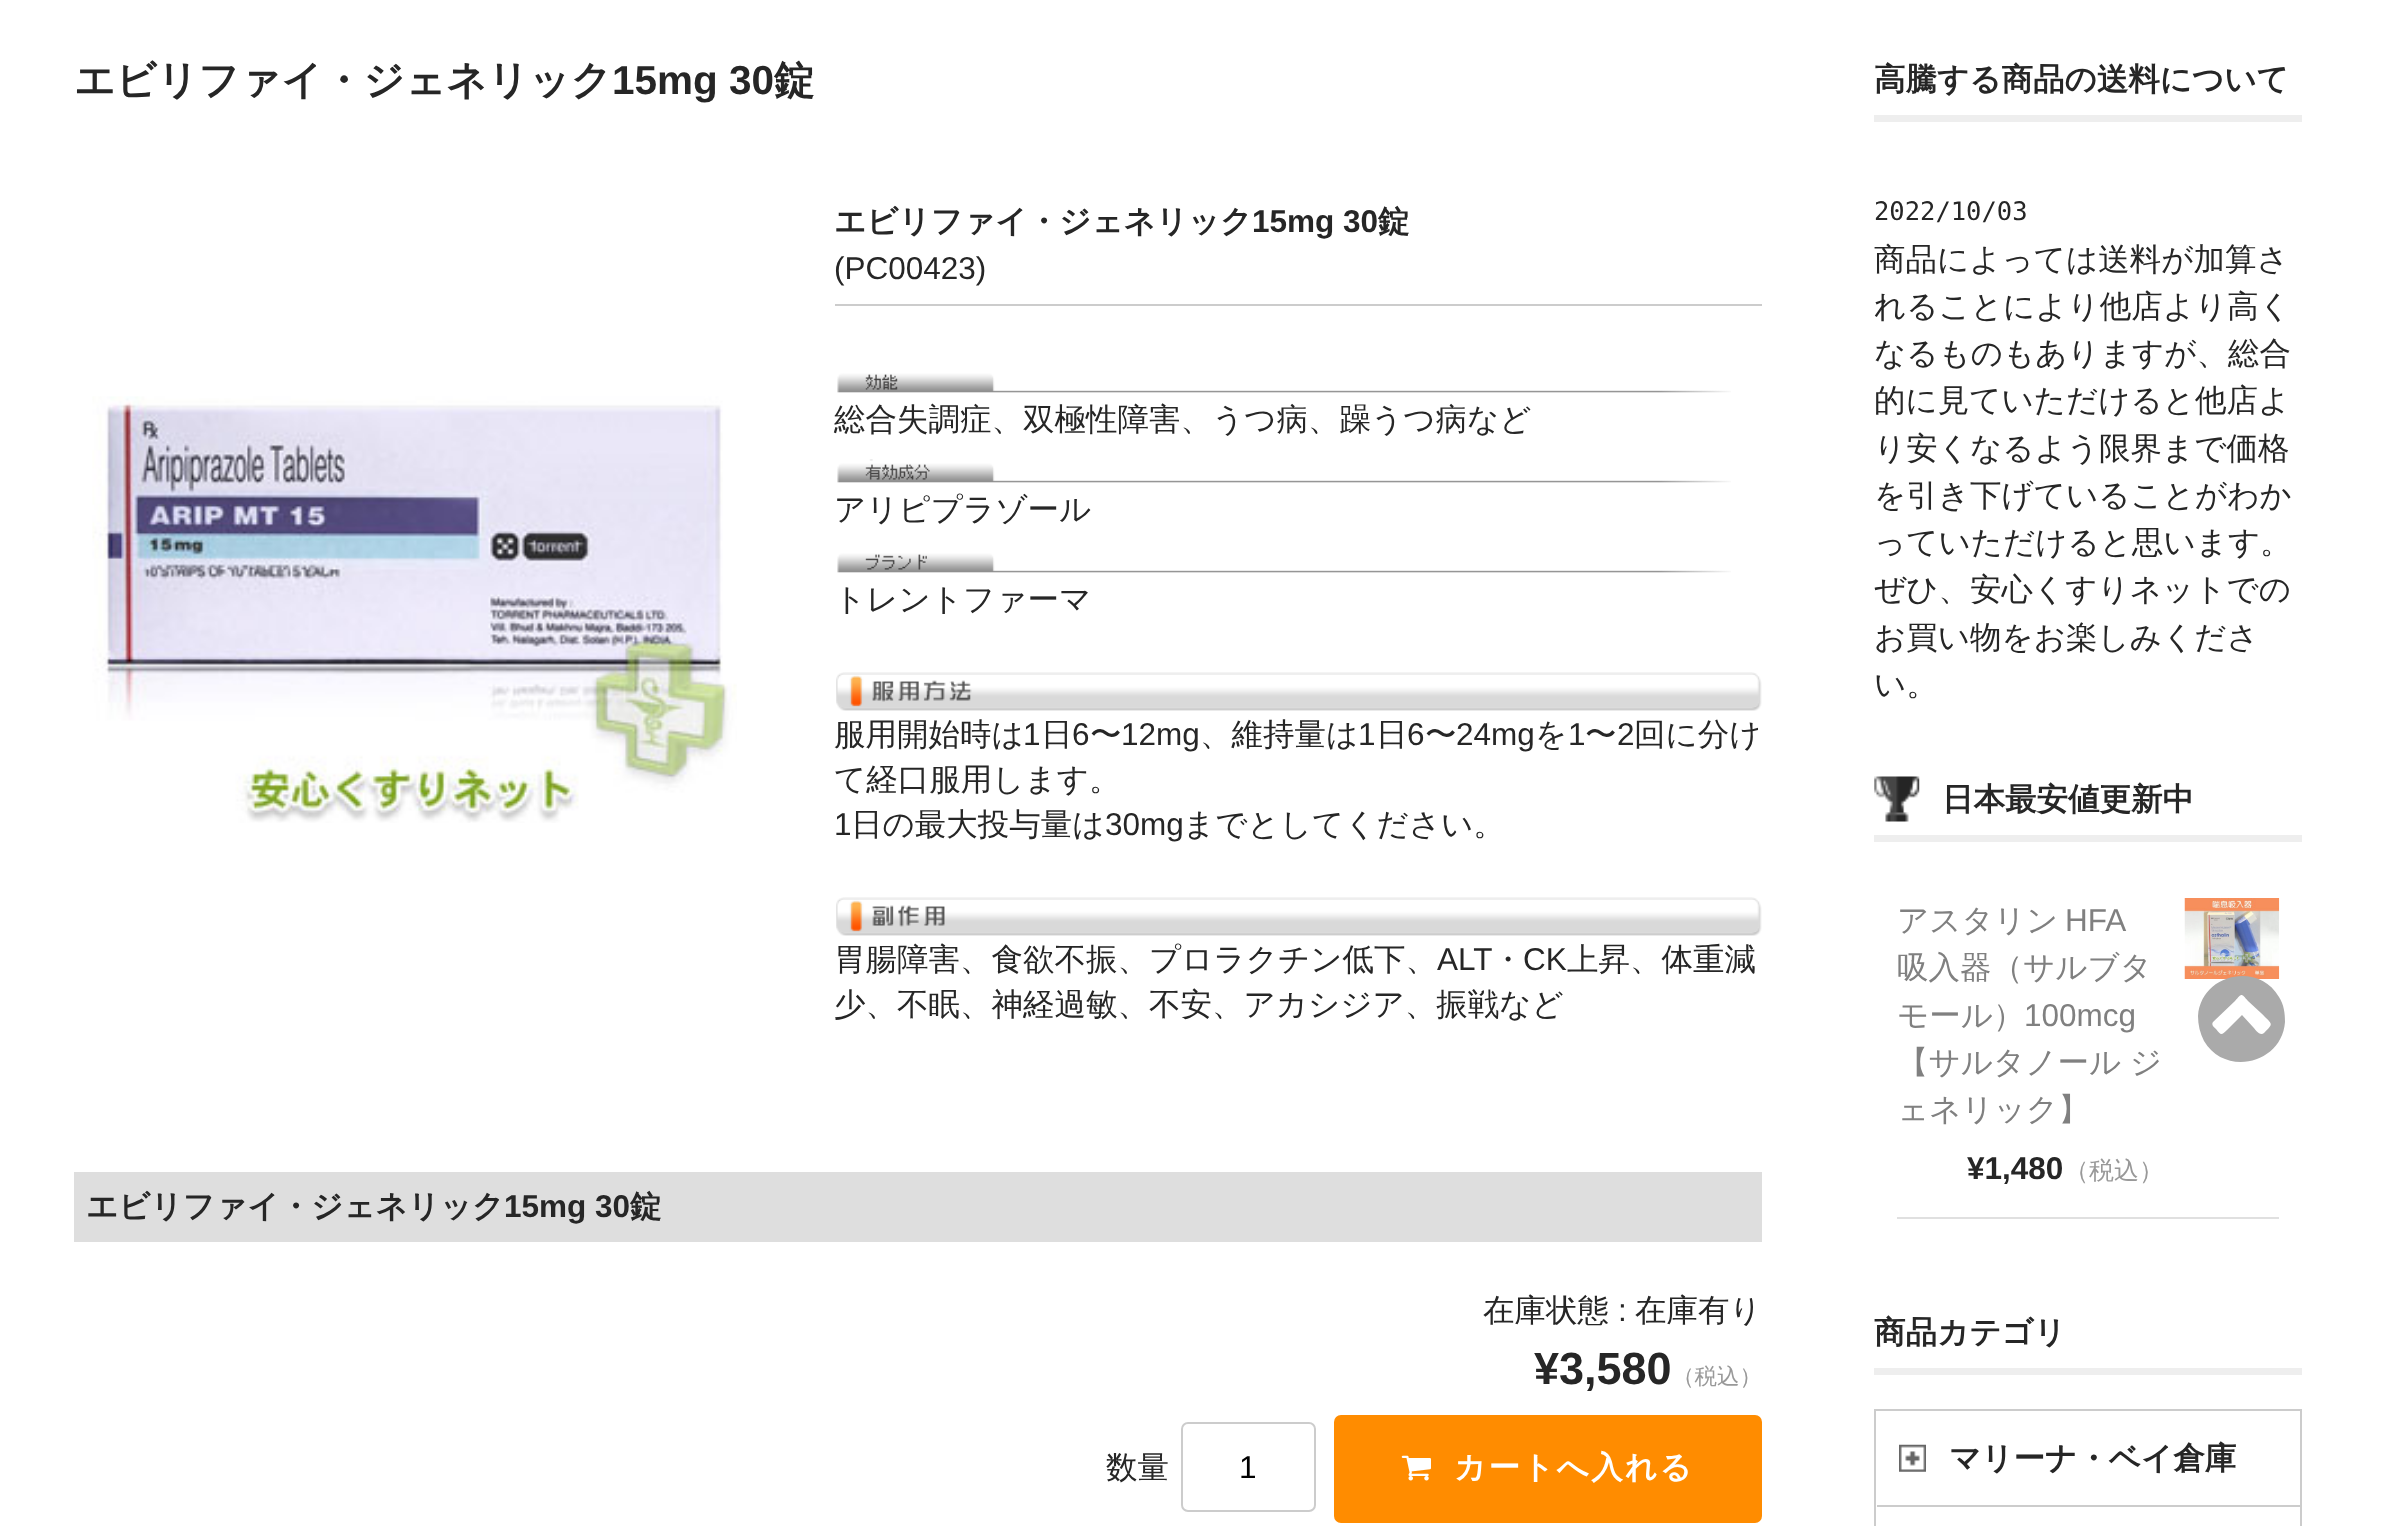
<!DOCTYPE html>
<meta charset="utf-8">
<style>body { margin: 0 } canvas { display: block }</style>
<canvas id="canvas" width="2397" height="1526"></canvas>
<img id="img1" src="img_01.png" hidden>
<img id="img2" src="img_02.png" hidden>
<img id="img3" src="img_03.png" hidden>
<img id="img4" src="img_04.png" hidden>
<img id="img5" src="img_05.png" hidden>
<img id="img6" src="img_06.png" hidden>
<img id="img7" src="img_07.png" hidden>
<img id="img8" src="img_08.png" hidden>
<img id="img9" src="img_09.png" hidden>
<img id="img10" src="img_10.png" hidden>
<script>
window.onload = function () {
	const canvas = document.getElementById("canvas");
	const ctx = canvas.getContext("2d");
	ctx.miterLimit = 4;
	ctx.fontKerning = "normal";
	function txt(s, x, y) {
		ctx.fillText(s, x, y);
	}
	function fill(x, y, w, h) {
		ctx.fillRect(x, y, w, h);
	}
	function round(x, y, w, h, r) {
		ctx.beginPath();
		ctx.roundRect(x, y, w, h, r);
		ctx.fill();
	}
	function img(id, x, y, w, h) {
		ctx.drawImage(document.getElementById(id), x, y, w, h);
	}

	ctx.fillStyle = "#FFFFFF";
	fill(0, 0, 2397, 1526);
	img("img1", 92, 396, 645, 427);
	ctx.fillStyle = "#CCCCCC";
	fill(835, 304, 927, 2);
	img("img2", 837, 373, 894, 20);
	img("img3", 837, 459, 894, 24);
	img("img4", 837, 553, 894, 20);
	img("img5", 836, 672, 926, 39);
	img("img6", 836, 897, 926, 39);
	ctx.fillStyle = "#DEDEDE";
	fill(74, 1172, 1688, 70);
	ctx.beginPath();
	ctx.roundRect(1182, 1423, 133, 88, 6);
	ctx.strokeStyle = "#CCCCCC";
	ctx.lineWidth = 2;
	ctx.stroke();
	ctx.fillStyle = "#FF8C00";
	round(1334, 1415, 428, 108, 7);
	img("img7", 1401, 1455, 30, 26);
	ctx.fillStyle = "#EEEEEE";
	fill(1874, 115, 428, 7);
	fill(1874, 835, 428, 7);
	img("img8", 1874, 776, 46, 46);
	ctx.fillStyle = "#E0E0E0";
	fill(1897, 1217, 382, 2);
	img("img9", 2184, 898, 96, 81);
	ctx.fillStyle = "#EEEEEE";
	fill(1874, 1368, 428, 7);
	ctx.fillStyle = "#CCCCCC";
	fill(1874, 1409, 428, 2);
	fill(2300, 1409, 2, 117);
	fill(1874, 1409, 2, 117);
	img("img10", 1899, 1444, 27, 28);
	fill(1877, 1505, 423, 2);
	ctx.fillStyle = "#AAAAAA";
	ctx.beginPath();
	ctx.moveTo(2264, 1033);
	ctx.bezierCurveTo(2274, 1023, 2273, 1025, 2261, 1013);
	ctx.lineTo(2248, 1001);
	ctx.bezierCurveTo(2241, 993, 2242, 993, 2235, 1001);
	ctx.lineTo(2213, 1022);
	ctx.bezierCurveTo(2211, 1025, 2214, 1027, 2216, 1029);
	ctx.bezierCurveTo(2221, 1035, 2221, 1036, 2227, 1030);
	ctx.lineTo(2242, 1015);
	ctx.lineTo(2253, 1027);
	ctx.bezierCurveTo(2255, 1029, 2260, 1037, 2264, 1033);
	ctx.closePath();
	ctx.moveTo(2279, 997);
	ctx.bezierCurveTo(2284, 1005, 2285, 1013, 2285, 1022);
	ctx.bezierCurveTo(2282, 1064, 2225, 1077, 2204, 1041);
	ctx.bezierCurveTo(2200, 1033, 2198, 1025, 2198, 1016);
	ctx.bezierCurveTo(2201, 974, 2258, 961, 2279, 997);
	ctx.closePath();
	ctx.fill();
	ctx.font = "bold 40.5px WenQuanYi Zen Hei";
	ctx.fillStyle = "#262626";
	txt("エビリファイ・ジェネリック", 74, 94);
	ctx.font = "bold 40.5px Liberation Sans";
	txt("15mg 30", 612, 94);
	ctx.font = "bold 40.5px WenQuanYi Zen Hei";
	txt("錠", 774, 94);
	ctx.font = "bold 31.5px WenQuanYi Zen Hei";
	txt("エビリファイ・ジェネリック", 834, 232);
	ctx.font = "bold 31.5px Liberation Sans";
	txt("15mg 30", 1252, 232);
	ctx.font = "bold 31.5px WenQuanYi Zen Hei";
	txt("錠", 1378, 232);
	ctx.font = "31.5px Liberation Sans";
	txt("(PC00423)", 834, 279);
	ctx.font = "500 31.5px WenQuanYi Zen Hei";
	txt("総合失調症、双極性障害、うつ病、躁うつ病など", 834, 430);
	txt("アリピプラゾール", 834, 520);
	txt("トレントファーマ", 834, 610);
	txt("服用開始時は", 834, 745);
	ctx.font = "31.5px Liberation Sans";
	txt("1", 1023, 745);
	ctx.font = "500 31.5px WenQuanYi Zen Hei";
	txt("日", 1041, 745);
	ctx.font = "31.5px Liberation Sans";
	txt("6", 1072, 745);
	ctx.font = "500 31.5px WenQuanYi Zen Hei";
	txt("〜", 1090, 745);
	ctx.font = "31.5px Liberation Sans";
	txt("12mg", 1121, 745);
	ctx.font = "500 31.5px WenQuanYi Zen Hei";
	txt("、維持量は", 1200, 745);
	ctx.font = "31.5px Liberation Sans";
	txt("1", 1358, 745);
	ctx.font = "500 31.5px WenQuanYi Zen Hei";
	txt("日", 1376, 745);
	ctx.font = "31.5px Liberation Sans";
	txt("6", 1407, 745);
	ctx.font = "500 31.5px WenQuanYi Zen Hei";
	txt("〜", 1425, 745);
	ctx.font = "31.5px Liberation Sans";
	txt("24mg", 1456, 745);
	ctx.font = "500 31.5px WenQuanYi Zen Hei";
	txt("を", 1535, 745);
	ctx.font = "31.5px Liberation Sans";
	txt("1", 1568, 745);
	ctx.font = "500 31.5px WenQuanYi Zen Hei";
	txt("〜", 1585, 745);
	ctx.font = "31.5px Liberation Sans";
	txt("2", 1617, 745);
	ctx.font = "500 31.5px WenQuanYi Zen Hei";
	txt("回に分け", 1634, 745);
	txt("て経口服用します。", 834, 790);
	ctx.font = "31.5px Liberation Sans";
	txt("1", 834, 835);
	ctx.font = "500 31.5px WenQuanYi Zen Hei";
	txt("日の最大投与量は", 851, 835);
	ctx.font = "31.5px Liberation Sans";
	txt("30mg", 1105, 835);
	ctx.font = "500 31.5px WenQuanYi Zen Hei";
	txt("までとしてください。", 1183, 835);
	txt("胃腸障害、食欲不振、プロラクチン低下、", 834, 970);
	ctx.font = "31.5px Liberation Sans";
	txt("ALT", 1437, 970);
	ctx.font = "500 31.5px WenQuanYi Zen Hei";
	txt("・", 1492, 970);
	ctx.font = "31.5px Liberation Sans";
	txt("CK", 1523, 970);
	ctx.font = "500 31.5px WenQuanYi Zen Hei";
	txt("上昇、体重減", 1567, 970);
	txt("少、不眠、神経過敏、不安、アカシジア、振戦など", 834, 1015);
	ctx.font = "bold 31.5px WenQuanYi Zen Hei";
	txt("エビリファイ・ジェネリック", 86, 1217);
	ctx.font = "bold 31.5px Liberation Sans";
	txt("15mg 30", 504, 1217);
	ctx.font = "bold 31.5px WenQuanYi Zen Hei";
	txt("錠", 630, 1217);
	ctx.font = "500 31.5px WenQuanYi Zen Hei";
	txt("在庫状態", 1483, 1321);
	ctx.font = "31.5px Liberation Sans";
	txt(":", 1618, 1321);
	ctx.font = "500 31.5px WenQuanYi Zen Hei";
	txt("在庫有り", 1635, 1321);
	ctx.font = "bold 45px Liberation Sans";
	txt("¥3,580", 1534, 1384);
	ctx.font = "500 22.5px WenQuanYi Zen Hei";
	ctx.fillStyle = "#999999";
	txt("（税込）", 1672, 1384);
	ctx.font = "500 31.5px WenQuanYi Zen Hei";
	ctx.fillStyle = "#262626";
	txt("数量", 1106, 1478);
	ctx.font = "31.5px Liberation Sans";
	ctx.fillStyle = "#000000";
	txt("1", 1239, 1478);
	ctx.letterSpacing = "2.25px";
	ctx.font = "bold 31.5px WenQuanYi Zen Hei";
	ctx.fillStyle = "#FFFFFF";
	txt("カートへ入れる", 1454, 1478);
	ctx.letterSpacing = "0px";
	ctx.fillStyle = "#262626";
	txt("高騰する商品の送料について", 1874, 90);
	ctx.font = "25.5px DejaVu Sans Mono";
	txt("2022/10/03", 1874, 220);
	ctx.font = "500 31.5px WenQuanYi Zen Hei";
	txt("商品によっては送料が加算さ", 1874, 270);
	txt("れることにより他店より高く", 1874, 317);
	txt("なるものもありますが、総合", 1874, 364);
	txt("的に見ていただけると他店よ", 1874, 411);
	txt("り安くなるよう限界まで価格", 1874, 459);
	txt("を引き下げていることがわか", 1874, 506);
	txt("っていただけると思います。", 1874, 553);
	txt("ぜひ、安心くすりネットでの", 1874, 600);
	txt("お買い物をお楽しみくださ", 1874, 648);
	txt("い。", 1874, 695);
	ctx.font = "bold 31.5px WenQuanYi Zen Hei";
	txt("日本最安値更新中", 1942, 810);
	ctx.font = "500 31.5px WenQuanYi Zen Hei";
	ctx.fillStyle = "#808080";
	txt("アスタリン", 1897, 931);
	ctx.font = "31.5px Liberation Sans";
	txt("HFA", 2065, 931);
	ctx.font = "500 31.5px WenQuanYi Zen Hei";
	txt("吸入器（サルブタ", 1897, 978);
	txt("モール）", 1897, 1026);
	ctx.font = "31.5px Liberation Sans";
	txt("100mcg", 2024, 1026);
	ctx.wordSpacing = "-1px";
	ctx.font = "500 31.5px WenQuanYi Zen Hei";
	txt("【サルタノール ジ", 1897, 1073);
	ctx.wordSpacing = "0px";
	txt("ェネリック】", 1897, 1120);
	ctx.font = "bold 31.5px Liberation Sans";
	ctx.fillStyle = "#262626";
	txt("¥1,480", 1967, 1179);
	ctx.font = "500 25px WenQuanYi Zen Hei";
	ctx.fillStyle = "#999999";
	txt("（税込）", 2064, 1179);
	ctx.font = "bold 31.5px WenQuanYi Zen Hei";
	ctx.fillStyle = "#262626";
	txt("商品カテゴリ", 1874, 1343);
	txt("マリーナ・ベイ倉庫", 1949, 1469);
};
</script>
